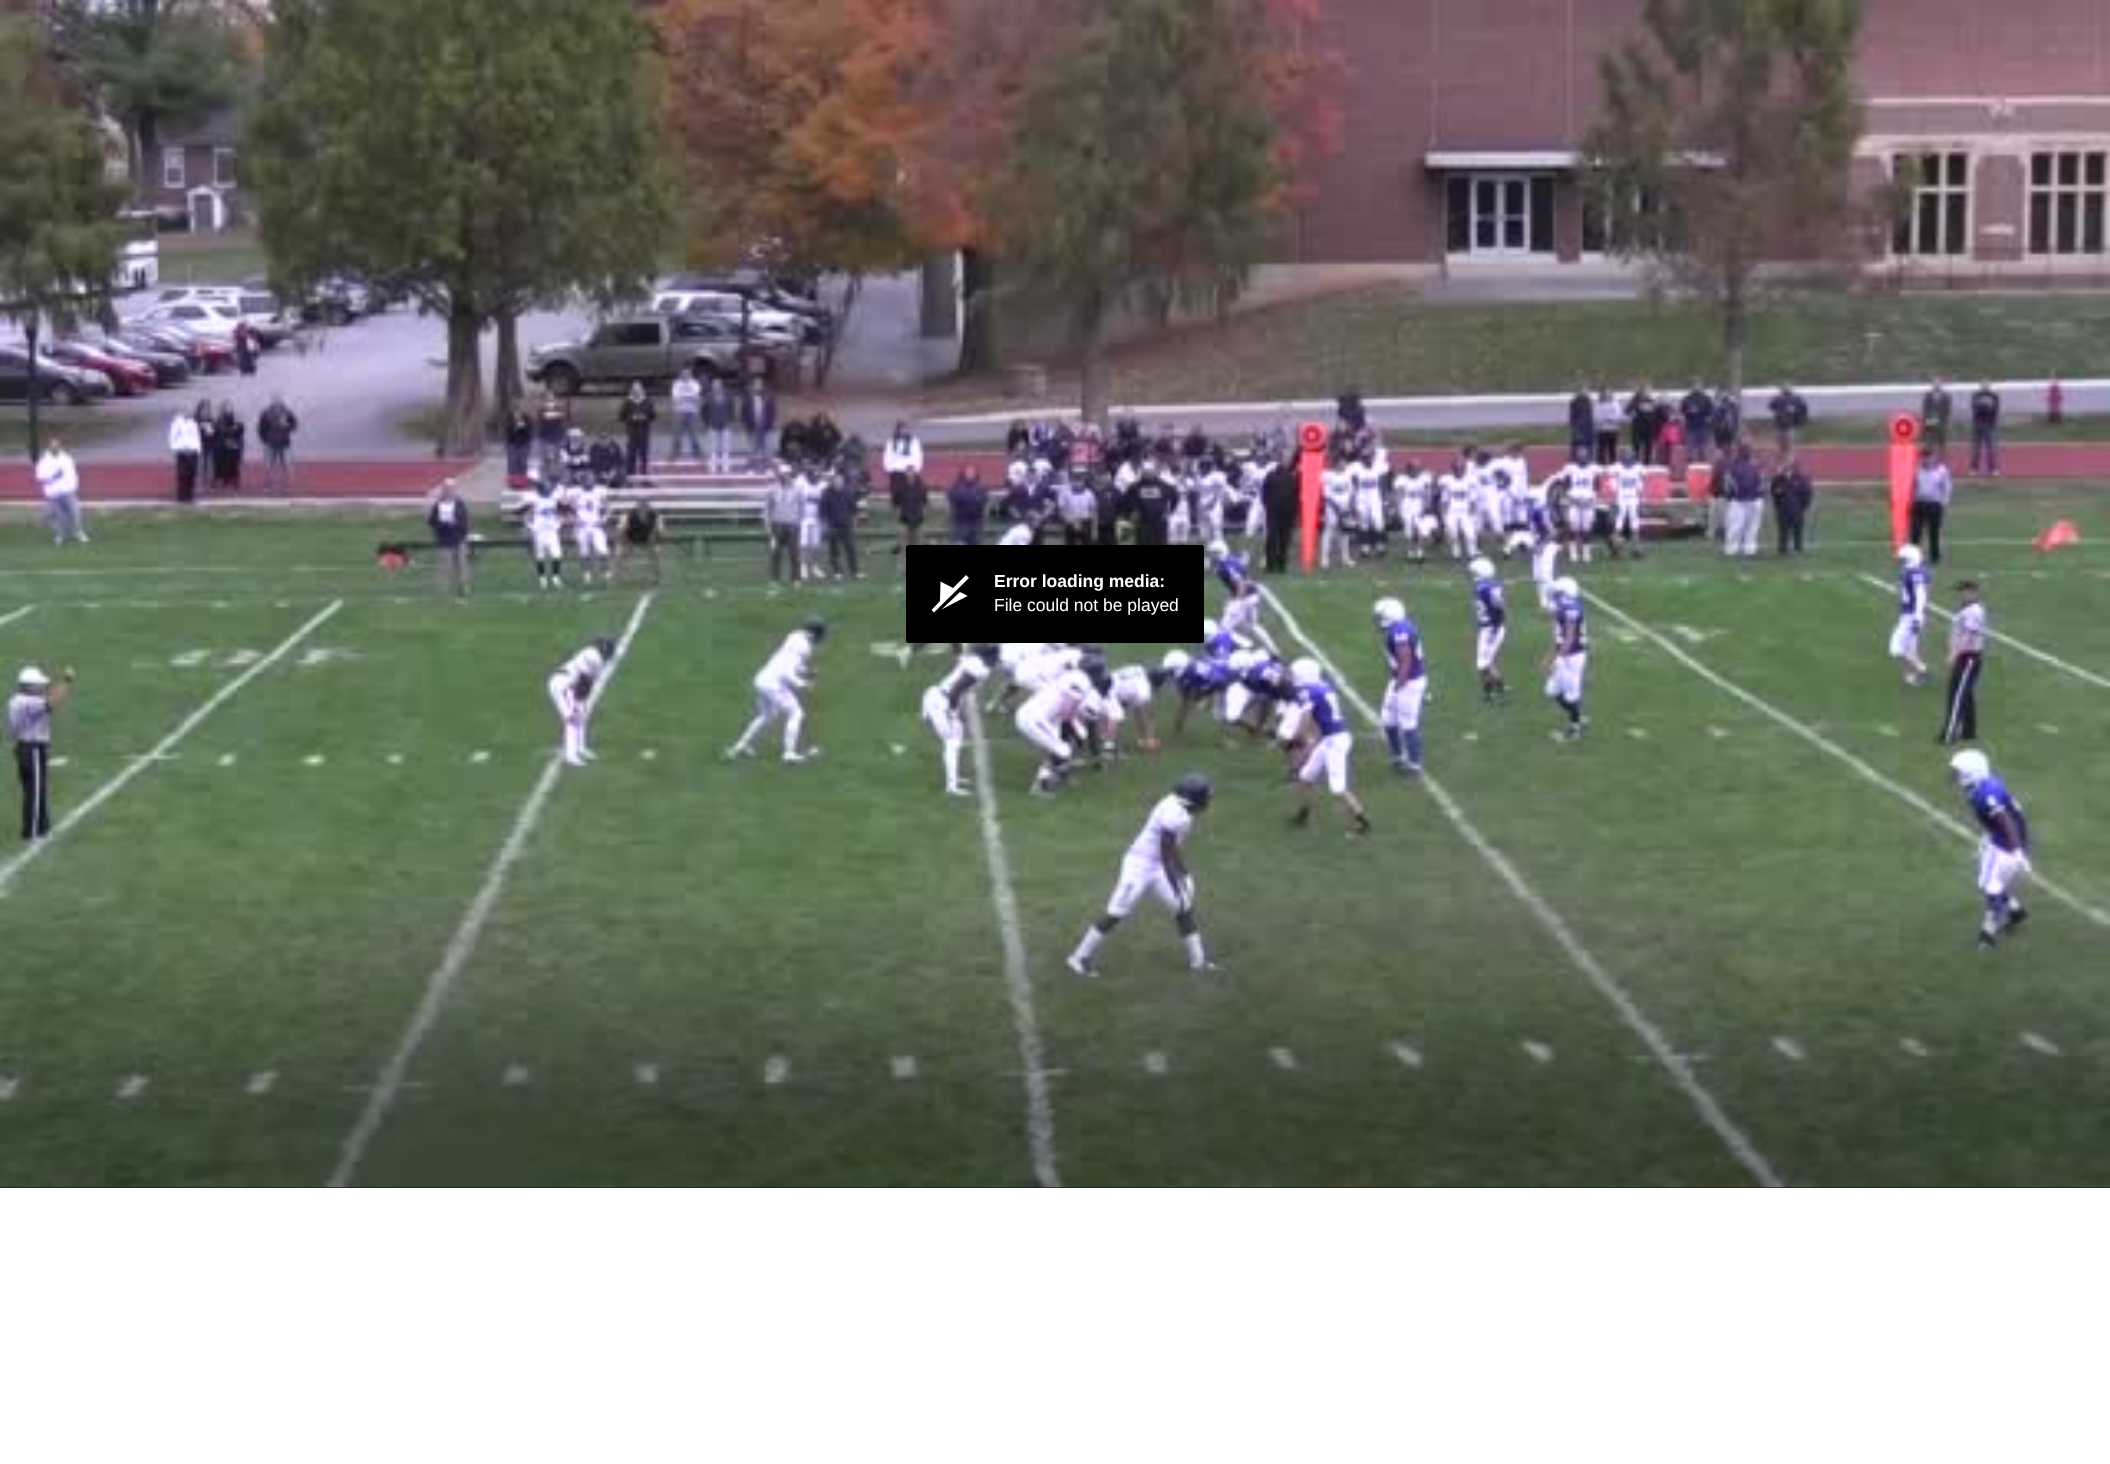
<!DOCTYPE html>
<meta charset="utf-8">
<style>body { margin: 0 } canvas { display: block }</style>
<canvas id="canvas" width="2110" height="1464"></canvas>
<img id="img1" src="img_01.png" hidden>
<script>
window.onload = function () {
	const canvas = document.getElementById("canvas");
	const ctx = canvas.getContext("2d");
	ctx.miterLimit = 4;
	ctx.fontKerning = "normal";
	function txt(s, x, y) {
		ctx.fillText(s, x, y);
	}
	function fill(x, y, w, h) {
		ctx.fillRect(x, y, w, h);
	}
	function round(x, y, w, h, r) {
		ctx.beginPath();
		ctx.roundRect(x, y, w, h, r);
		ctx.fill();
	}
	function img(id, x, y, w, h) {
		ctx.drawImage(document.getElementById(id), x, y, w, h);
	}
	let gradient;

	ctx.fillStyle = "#FFFFFF";
	fill(0, 0, 2110, 1464);
	ctx.fillStyle = "#333333";
	fill(0, 1187, 2110, 1);
	img("img1", 0, 0, 2110, 1188);
	ctx.fillStyle = "#000000";
	round(906, 545, 298, 98, 2.5);
	ctx.fillStyle = "#FFFFFF";
	ctx.beginPath();
	ctx.moveTo(967.5, 596);
	ctx.lineTo(941.5, 609.5);
	ctx.lineTo(960, 592);
	ctx.bezierCurveTo(967, 595.5, 968.5, 596, 967.5, 596.5);
	ctx.closePath();
	ctx.moveTo(966, 575);
	ctx.lineTo(953, 588);
	ctx.lineTo(940.5, 581.5);
	ctx.lineTo(940, 601);
	ctx.lineTo(931.5, 610);
	ctx.lineTo(934, 612.5);
	ctx.lineTo(969, 578);
	ctx.closePath();
	ctx.fill();
	gradient = ctx.createLinearGradient(1055, 887, 1055, 1188);
	gradient.addColorStop(0, "rgba(0, 0, 0, 0)");
	gradient.addColorStop(0.77, "rgba(0, 0, 0, 0.4)");
	gradient.addColorStop(1, "rgba(0, 0, 0, 0.4)");
	ctx.fillStyle = gradient;
	fill(0, 900, 2110, 288);
	ctx.font = "bold 17.5px Liberation Sans";
	ctx.fillStyle = "#FFFFFF";
	txt("Error loading media:", 994, 587);
	ctx.font = "17.5px Liberation Sans";
	txt("File could not be played", 994, 611);
};
</script>
